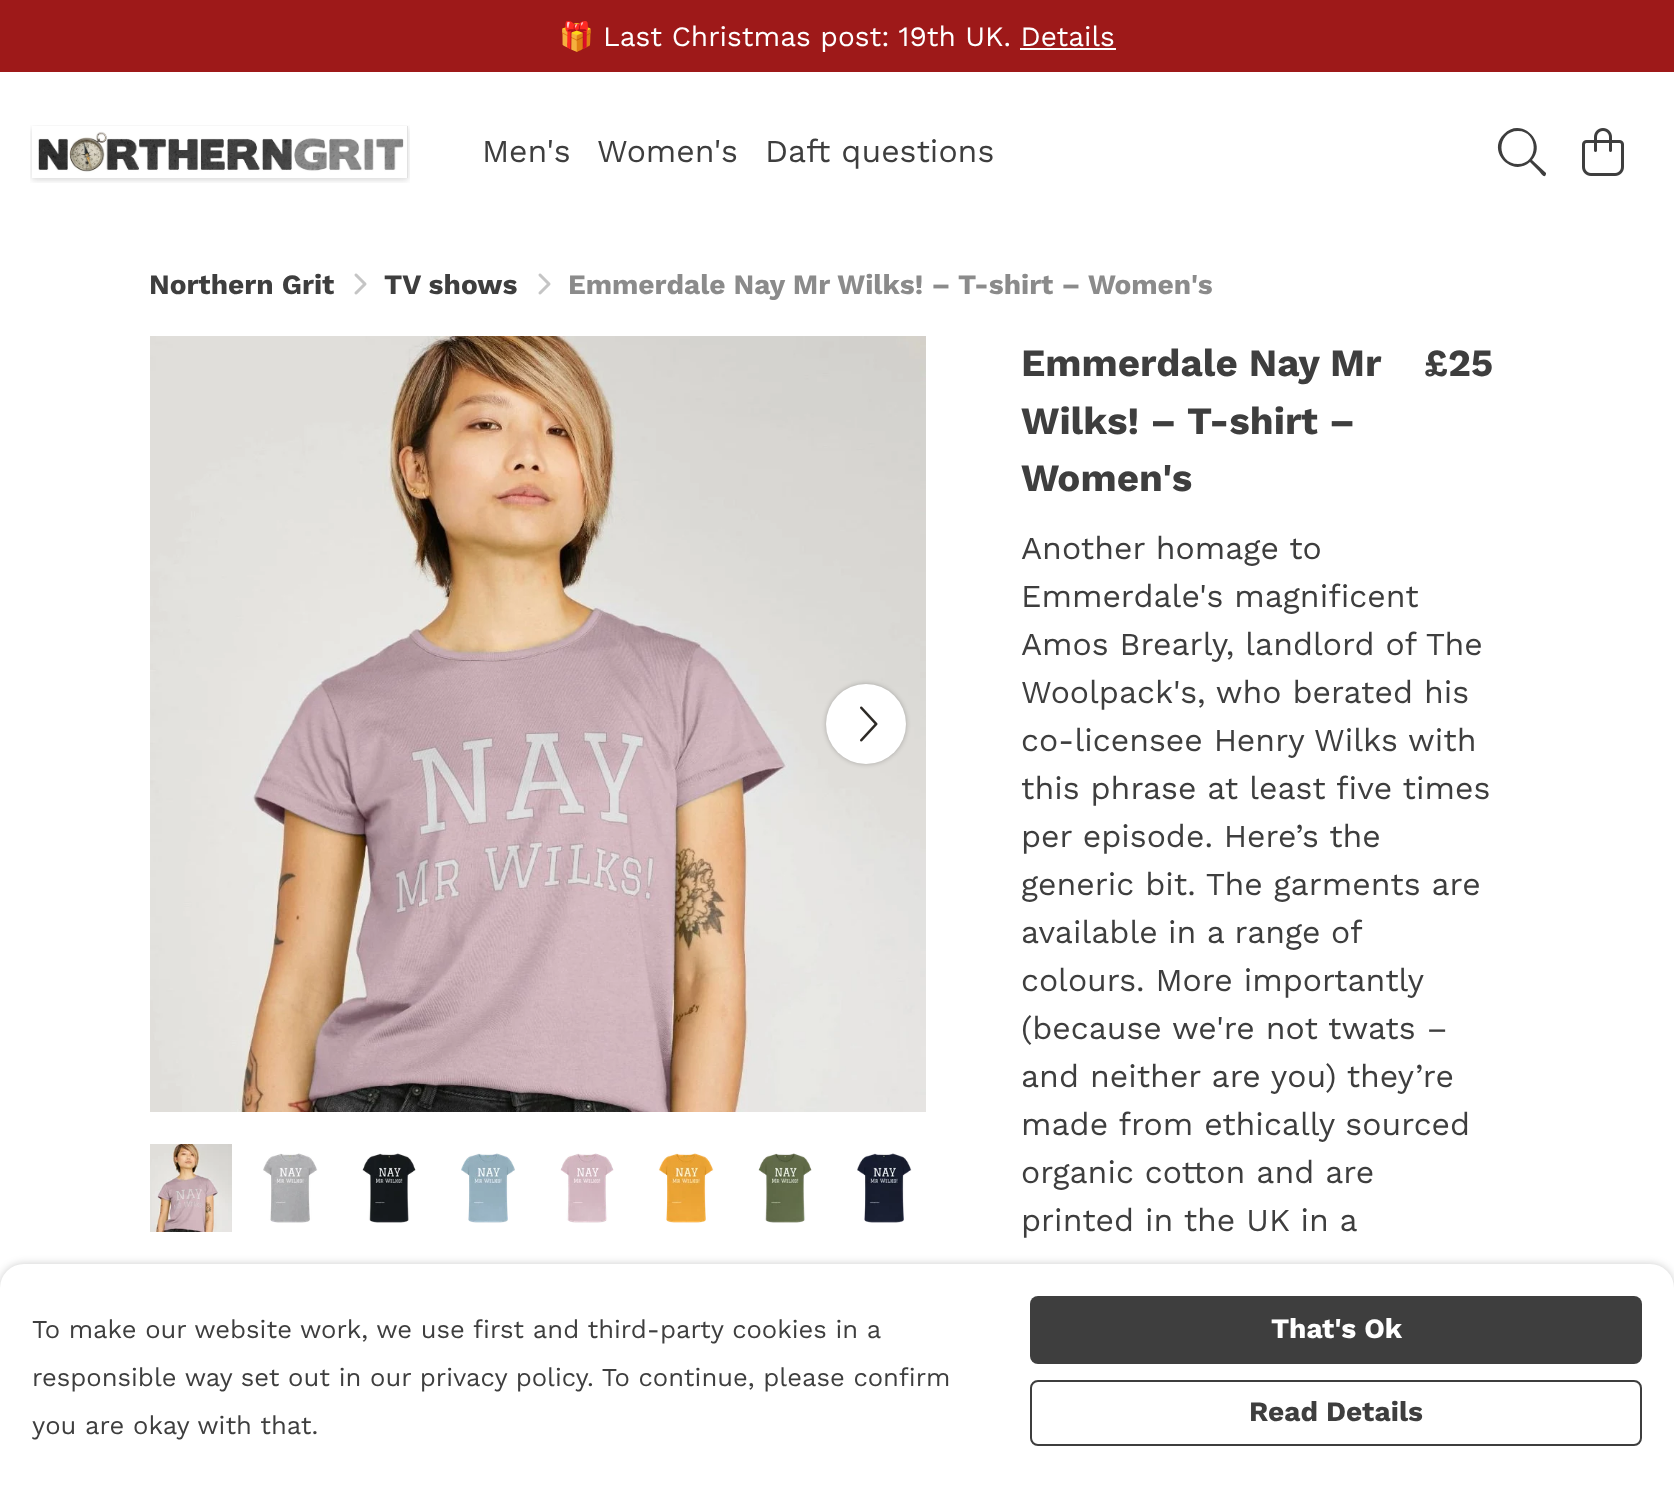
<!DOCTYPE html>
<meta charset="utf-8">
<style>body { margin: 0 } canvas { display: block }</style>
<canvas id="canvas" width="1674" height="1488"></canvas>
<img id="img1" src="img_01.png" hidden>
<img id="img2" src="img_02.png" hidden>
<img id="img3" src="img_03.png" hidden>
<img id="img4" src="img_04.png" hidden>
<img id="img5" src="img_05.png" hidden>
<img id="img6" src="img_06.png" hidden>
<img id="img7" src="img_07.png" hidden>
<img id="img8" src="img_08.png" hidden>
<img id="img9" src="img_09.png" hidden>
<img id="img10" src="img_10.png" hidden>
<img id="img11" src="img_11.png" hidden>
<img id="img12" src="img_12.png" hidden>
<img id="img13" src="img_13.png" hidden>
<script>
window.onload = function () {
	const canvas = document.getElementById("canvas");
	const ctx = canvas.getContext("2d");
	ctx.miterLimit = 4;
	ctx.fontKerning = "normal";
	function txt(s, x, y) {
		ctx.fillText(s, x, y);
	}
	function fill(x, y, w, h) {
		ctx.fillRect(x, y, w, h);
	}
	function round(x, y, w, h, r) {
		ctx.beginPath();
		ctx.roundRect(x, y, w, h, r);
		ctx.fill();
	}
	function img(id, x, y, w, h) {
		ctx.drawImage(document.getElementById(id), x, y, w, h);
	}

	ctx.fillStyle = "#FFFFFF";
	fill(0, 0, 1674, 1488);
	ctx.fillStyle = "#9E1919";
	fill(0, 0, 1674, 72);
	ctx.fillStyle = "#FFFFFF";
	fill(1020, 48, 96, 2);
	img("img1", 30, 125, 380, 58);
	ctx.fillStyle = "#3E3E3E";
	ctx.beginPath();
	ctx.moveTo(1546, 173);
	ctx.lineTo(1532, 160);
	ctx.bezierCurveTo(1548, 142, 1521, 116, 1504, 134);
	ctx.bezierCurveTo(1486, 151, 1512, 178, 1530, 162);
	ctx.lineTo(1539, 171);
	ctx.bezierCurveTo(1540, 172, 1543, 177, 1545, 176);
	ctx.bezierCurveTo(1546, 175, 1546, 174, 1546, 173);
	ctx.closePath();
	ctx.moveTo(1518, 164);
	ctx.bezierCurveTo(1496, 164, 1496, 131, 1518, 131);
	ctx.bezierCurveTo(1539, 131, 1539, 164, 1518, 164);
	ctx.closePath();
	ctx.fill();
	img("img2", 1582, 128, 42, 48);
	img("img3", 354, 273, 13, 22);
	img("img3", 538, 273, 13, 22);
	img("img4", 150, 336, 776, 776);
	ctx.fillStyle = "rgba(0, 0, 0, 0.25)";
	ctx.filter = "blur(2.5px)";
	ctx.beginPath();
	ctx.roundRect(826, 684, 80, 80, 40);
	ctx.fill();
	ctx.filter = "none";
	ctx.fillStyle = "#FFFFFF";
	ctx.beginPath();
	ctx.arc(866, 724, 40, 0, Math.PI * 2);
	ctx.fill();
	img("img5", 860, 706, 18, 36);
	img("img6", 150, 1144, 82, 88);
	img("img7", 263, 1153, 55, 70);
	img("img8", 362, 1153, 54, 70);
	img("img9", 461, 1153, 54, 70);
	img("img10", 560, 1153, 54, 70);
	img("img11", 658, 1153, 56, 70);
	img("img12", 758, 1153, 54, 70);
	img("img13", 857, 1153, 55, 70);
	ctx.fillStyle = "rgba(0, 0, 0, 0.2)";
	ctx.filter = "blur(4px)";
	ctx.beginPath();
	ctx.roundRect(0, 1264, 1674, 224, 24);
	ctx.fill();
	ctx.filter = "none";
	ctx.fillStyle = "#FFFFFF";
	ctx.beginPath();
	ctx.roundRect(0, 1264, 1674, 224, [24, 24, 0, 0]);
	ctx.fill();
	ctx.fillStyle = "#3E3E3E";
	round(1030, 1296, 612, 68, 8);
	ctx.beginPath();
	ctx.roundRect(1031, 1381, 610, 64, 7);
	ctx.strokeStyle = "#3E3E3E";
	ctx.lineWidth = 2;
	ctx.stroke();
	ctx.font = "28px Noto Color Emoji";
	ctx.fillStyle = "#FFFFFF";
	txt("🎁", 559, 46);
	ctx.font = "28px Work Sans";
	txt("Last Christmas post: 19th UK. Details", 603, 46);
	ctx.font = "32px Work Sans";
	ctx.fillStyle = "#3E3E3E";
	txt("Men's", 482, 162);
	txt("Women's", 597, 162);
	txt("Daft questions", 765, 162);
	ctx.font = "bold 28px Work Sans";
	txt("Northern Grit", 149, 294);
	txt("TV shows", 384, 294);
	ctx.fillStyle = "#8B8B8B";
	txt("Emmerdale Nay Mr Wilks! – T-shirt – Women's", 568, 294);
	ctx.font = "bold 38.5px Work Sans";
	ctx.fillStyle = "#3E3E3E";
	txt("Emmerdale Nay Mr", 1021, 376);
	txt("Wilks! – T-shirt –", 1021, 434);
	txt("Women's", 1021, 491);
	txt("£25", 1424, 376);
	ctx.font = "32px Work Sans";
	txt("Another homage to", 1021, 559);
	txt("Emmerdale's magnificent", 1021, 607);
	txt("Amos Brearly, landlord of The", 1021, 655);
	txt("Woolpack's, who berated his", 1021, 703);
	txt("co-licensee Henry Wilks with", 1021, 751);
	txt("this phrase at least five times", 1021, 799);
	txt("per episode. Here’s the", 1021, 847);
	txt("generic bit. The garments are", 1021, 895);
	ctx.wordSpacing = "-0.5px";
	txt("available in a range of", 1021, 943);
	ctx.wordSpacing = "0px";
	txt("colours. More importantly", 1021, 991);
	txt("(because we're not twats –", 1021, 1039);
	txt("and neither are you) they’re", 1021, 1087);
	txt("made from ethically sourced", 1021, 1135);
	txt("organic cotton and are", 1021, 1183);
	txt("printed in the UK in a", 1021, 1231);
	ctx.font = "25.6px Work Sans";
	txt("To make our website work, we use first and third-party cookies in a", 32, 1338);
	txt("responsible way set out in our privacy policy. To continue, please confirm", 32, 1386);
	txt("you are okay with that.", 32, 1434);
	ctx.font = "bold 28px Work Sans";
	ctx.fillStyle = "#FFFFFF";
	txt("That's Ok", 1271, 1338);
	ctx.fillStyle = "#3E3E3E";
	txt("Read Details", 1249, 1421);
};
</script>
